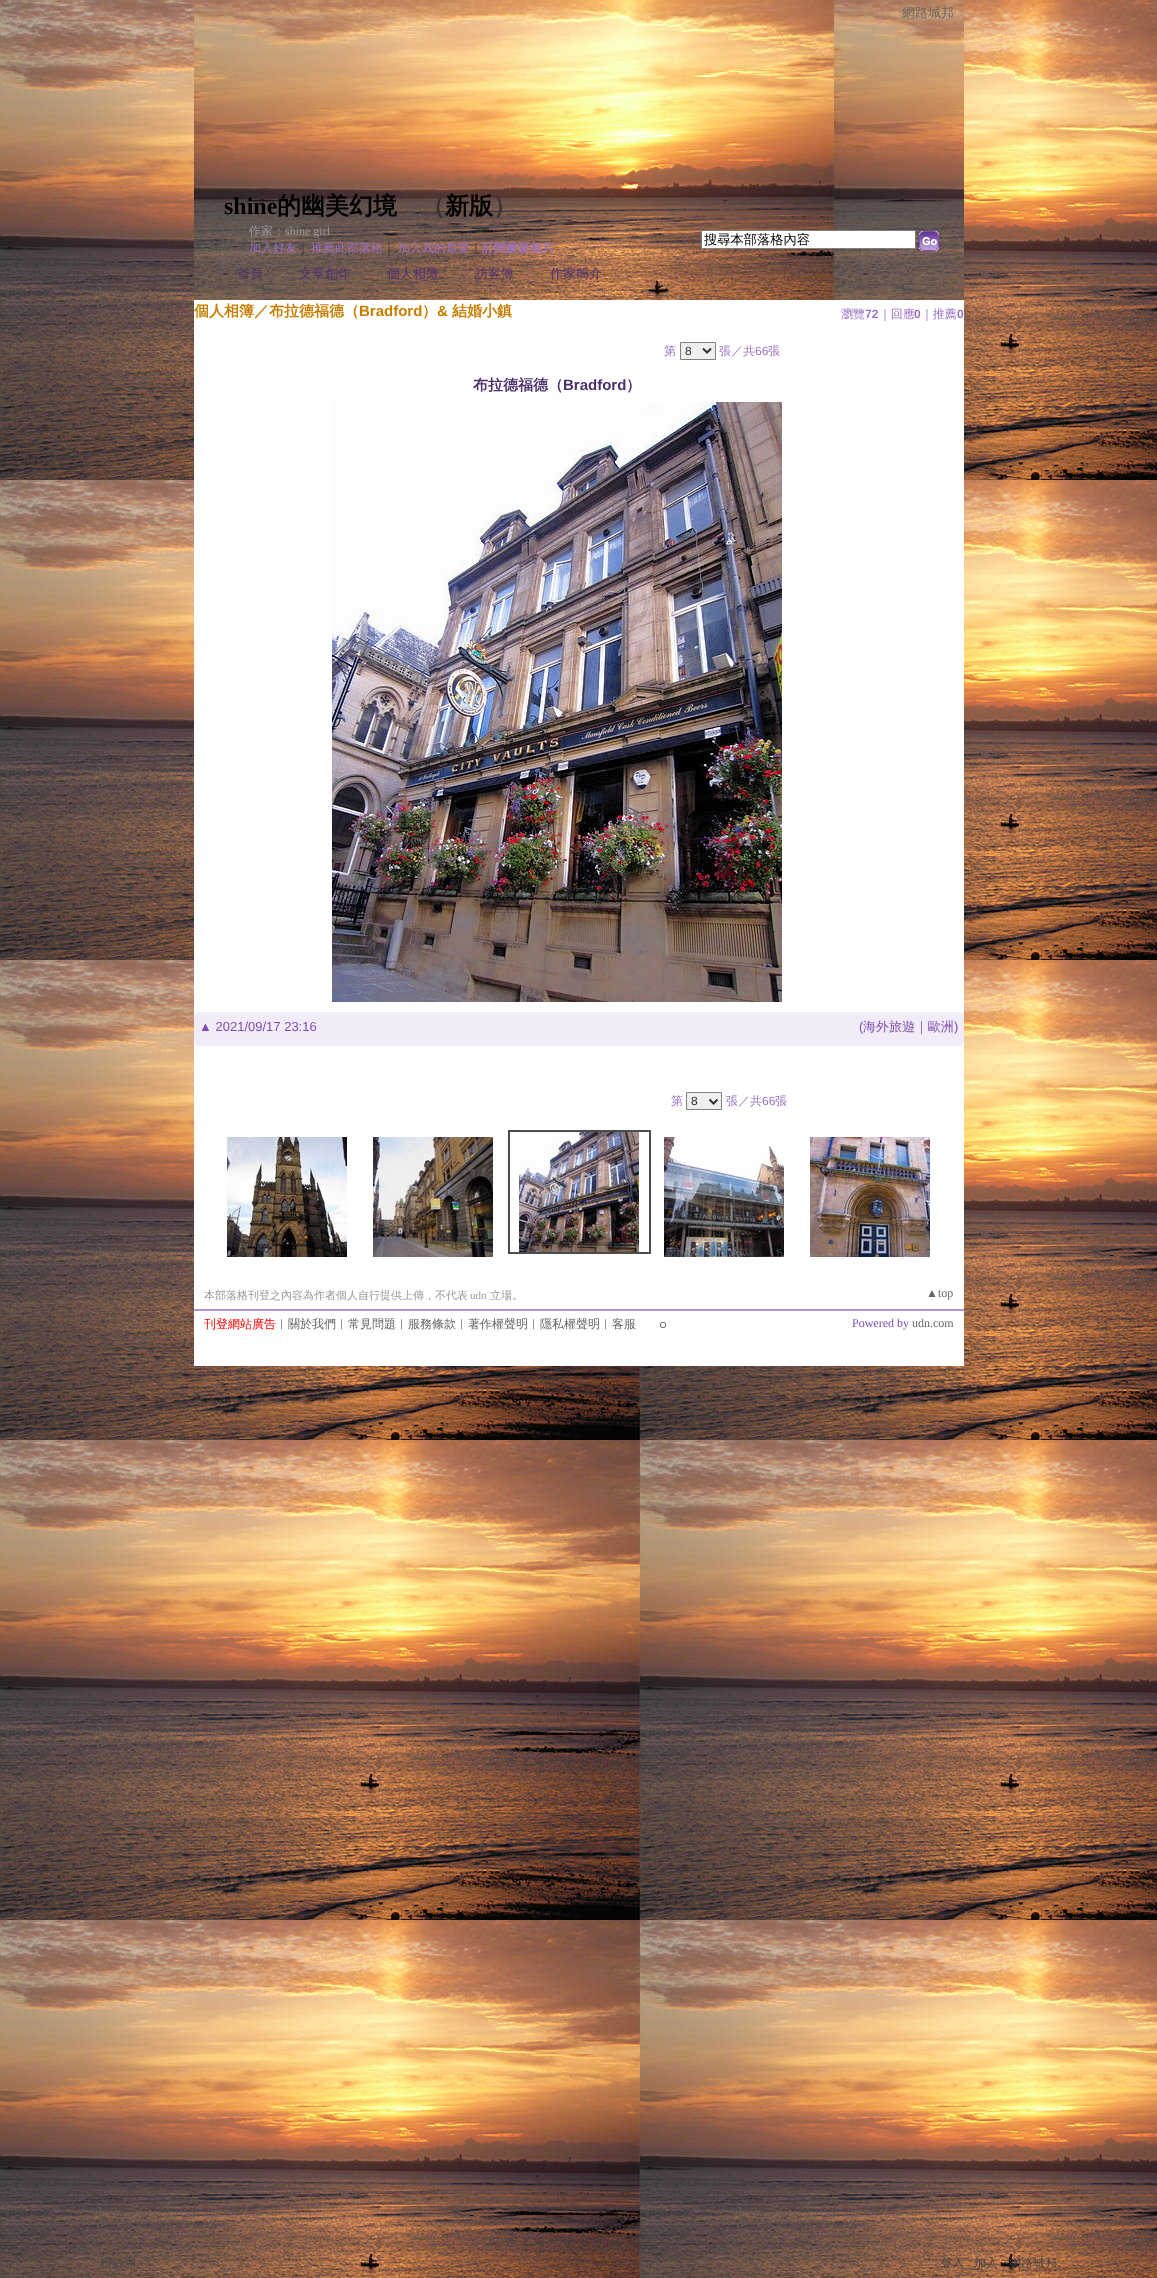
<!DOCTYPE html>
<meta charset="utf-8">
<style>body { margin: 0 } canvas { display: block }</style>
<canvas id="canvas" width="1157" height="2278"></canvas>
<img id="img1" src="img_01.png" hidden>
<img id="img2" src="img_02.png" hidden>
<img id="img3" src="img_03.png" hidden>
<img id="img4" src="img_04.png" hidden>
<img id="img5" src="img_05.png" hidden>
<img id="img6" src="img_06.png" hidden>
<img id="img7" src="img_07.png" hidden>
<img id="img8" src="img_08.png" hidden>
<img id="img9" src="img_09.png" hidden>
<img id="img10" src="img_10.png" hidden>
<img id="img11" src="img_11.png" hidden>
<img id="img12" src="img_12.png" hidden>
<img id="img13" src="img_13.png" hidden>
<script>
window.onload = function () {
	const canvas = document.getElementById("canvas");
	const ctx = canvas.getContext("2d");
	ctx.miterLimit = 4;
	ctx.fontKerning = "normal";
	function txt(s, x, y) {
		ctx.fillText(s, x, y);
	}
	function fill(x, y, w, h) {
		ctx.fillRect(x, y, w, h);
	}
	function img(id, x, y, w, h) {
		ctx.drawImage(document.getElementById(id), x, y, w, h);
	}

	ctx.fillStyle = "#FFFFFF";
	fill(0, 0, 1157, 2278);
	img("img1", 0, 0, 1157, 2278);
	fill(194, 300, 770, 1009);
	img("img2", 194, 0, 770, 300);
	ctx.beginPath();
	ctx.rect(701.5, 230.5, 214, 18);
	ctx.fill();
	ctx.strokeStyle = "#808080";
	ctx.stroke();
	img("img3", 919, 231, 20, 20);
	ctx.fillStyle = "#EFEFEF";
	ctx.beginPath();
	ctx.rect(680.5, 342.5, 35, 17);
	ctx.fill();
	ctx.stroke();
	ctx.beginPath();
	ctx.moveTo(703, 348.5);
	ctx.lineTo(707, 352.5);
	ctx.lineTo(711, 348.5);
	ctx.strokeStyle = "#333333";
	ctx.lineWidth = 2;
	ctx.stroke();
	img("img4", 332, 402, 450, 600);
	img("img5", 194, 1012, 5, 5);
	ctx.fillStyle = "#F1ECF7";
	fill(199, 1012, 760, 5);
	img("img6", 959, 1012, 5, 5);
	fill(194, 1017, 770, 24);
	img("img7", 194, 1041, 5, 5);
	fill(199, 1041, 760, 5);
	img("img8", 959, 1041, 5, 5);
	ctx.fillStyle = "#EFEFEF";
	ctx.beginPath();
	ctx.rect(686.5, 1092.5, 35, 17);
	ctx.fill();
	ctx.strokeStyle = "#808080";
	ctx.lineWidth = 1;
	ctx.stroke();
	ctx.beginPath();
	ctx.moveTo(709.5, 1099.5);
	ctx.lineTo(713.5, 1103.5);
	ctx.lineTo(717.5, 1099.5);
	ctx.strokeStyle = "#333333";
	ctx.lineWidth = 2;
	ctx.stroke();
	img("img9", 227, 1137, 120, 120);
	img("img10", 373, 1137, 120, 120);
	ctx.strokeStyle = "#4D4D4D";
	ctx.strokeRect(509, 1131, 141, 122);
	img("img11", 519, 1132, 120, 120);
	img("img12", 664, 1137, 120, 120);
	img("img13", 810, 1137, 120, 120);
	ctx.fillStyle = "#FFFFFF";
	fill(194, 1311, 770, 55);
	ctx.fillStyle = "#B395D2";
	fill(194, 1309, 770, 2);
	ctx.beginPath();
	ctx.roundRect(660.5, 1322.5, 5, 5, 1.5);
	ctx.strokeStyle = "#767676";
	ctx.lineWidth = 1;
	ctx.stroke();
	ctx.font = "500 13px WenQuanYi Zen Hei";
	ctx.fillStyle = "#666666";
	txt("網路城邦", 902, 17);
	ctx.font = "bold 24px Liberation Serif";
	ctx.fillStyle = "#000000";
	txt("shine", 224, 214);
	ctx.font = "bold 24px WenQuanYi Zen Hei";
	txt("的幽美幻境", 277, 214);
	ctx.fillStyle = "#333333";
	txt("（", 421, 214);
	ctx.fillStyle = "#000000";
	txt("新版", 445, 214);
	ctx.fillStyle = "#333333";
	txt("）", 493, 214);
	ctx.font = "500 12px WenQuanYi Zen Hei";
	ctx.fillStyle = "#999999";
	txt("作家：", 249, 235);
	ctx.font = "12px Liberation Serif";
	txt("shine girl", 285, 235);
	ctx.font = "500 13.25px WenQuanYi Zen Hei";
	ctx.fillStyle = "#000000";
	txt("搜尋本部落格內容", 704, 244);
	ctx.font = "500 12px WenQuanYi Zen Hei";
	ctx.fillStyle = "#9971C2";
	txt("加入好友", 249, 252);
	ctx.fillStyle = "#333333";
	txt("｜", 297, 252);
	ctx.fillStyle = "#9971C2";
	txt("推薦此部落格", 311, 252);
	ctx.fillStyle = "#333333";
	txt("｜", 383, 252);
	ctx.fillStyle = "#9971C2";
	txt("加入我的最愛", 398, 252);
	ctx.fillStyle = "#333333";
	txt("｜", 470, 252);
	ctx.font = "bold 12px WenQuanYi Zen Hei";
	ctx.fillStyle = "#9971C2";
	txt("訂閱最新相片", 482, 252);
	ctx.font = "500 13px WenQuanYi Zen Hei";
	ctx.fillStyle = "#4D2F6C";
	txt("首頁", 237, 278);
	txt("文章創作", 299, 278);
	txt("個人相簿", 387, 278);
	txt("訪客簿", 475, 278);
	txt("作家簡介", 550, 278);
	ctx.font = "bold 15px WenQuanYi Zen Hei";
	ctx.fillStyle = "#C77E00";
	txt("個人相簿／布拉德福德（", 194, 316);
	ctx.font = "bold 15px Liberation Sans";
	txt("Bradford", 359, 316);
	ctx.font = "bold 15px WenQuanYi Zen Hei";
	txt("）", 422, 316);
	ctx.font = "bold 15px Liberation Sans";
	txt("&", 437, 316);
	ctx.font = "bold 15px WenQuanYi Zen Hei";
	txt("結婚小鎮", 452, 316);
	ctx.font = "500 12px WenQuanYi Zen Hei";
	ctx.fillStyle = "#9971C2";
	txt("瀏覽", 841, 318);
	ctx.font = "bold 12px Liberation Sans";
	txt("72", 865, 318);
	ctx.font = "500 12px WenQuanYi Zen Hei";
	txt("｜回應", 879, 318);
	ctx.font = "bold 12px Liberation Sans";
	txt("0", 914, 318);
	ctx.font = "500 12px WenQuanYi Zen Hei";
	txt("｜推薦", 921, 318);
	ctx.font = "bold 12px Liberation Sans";
	txt("0", 957, 318);
	ctx.font = "500 12px WenQuanYi Zen Hei";
	txt("第", 664, 355);
	ctx.font = "12px Liberation Sans";
	ctx.fillStyle = "#333333";
	txt("8", 685, 355);
	ctx.font = "500 12px WenQuanYi Zen Hei";
	ctx.fillStyle = "#9971C2";
	txt("張／共", 719, 355);
	ctx.font = "12px Liberation Sans";
	txt("66", 755, 355);
	ctx.font = "500 12px WenQuanYi Zen Hei";
	txt("張", 768, 355);
	ctx.font = "bold 15px WenQuanYi Zen Hei";
	ctx.fillStyle = "#4D2F6C";
	txt("布拉德福德（", 473, 390);
	ctx.font = "bold 15px Liberation Sans";
	txt("Bradford", 563, 390);
	ctx.font = "bold 15px WenQuanYi Zen Hei";
	txt("）", 626, 390);
	ctx.font = "13px Liberation Sans";
	ctx.fillStyle = "#7F4DB3";
	txt("▲ 2021/09/17 23:16", 199, 1031);
	txt("(", 859, 1031);
	ctx.font = "500 13px WenQuanYi Zen Hei";
	txt("海外旅遊｜歐洲", 863, 1031);
	ctx.font = "13px Liberation Sans";
	txt(")", 954, 1031);
	ctx.font = "500 12px WenQuanYi Zen Hei";
	ctx.fillStyle = "#9971C2";
	txt("第", 671, 1105);
	ctx.font = "12px Liberation Sans";
	ctx.fillStyle = "#333333";
	txt("8", 691, 1105);
	ctx.font = "500 12px WenQuanYi Zen Hei";
	ctx.fillStyle = "#9971C2";
	txt("張／共", 726, 1105);
	ctx.font = "12px Liberation Sans";
	txt("66", 762, 1105);
	ctx.font = "500 12px WenQuanYi Zen Hei";
	txt("張", 775, 1105);
	ctx.font = "500 11px WenQuanYi Zen Hei";
	ctx.fillStyle = "#999999";
	txt("本部落格刊登之內容為作者個人自行提供上傳，不代表", 204, 1299);
	ctx.font = "11px Liberation Serif";
	txt("udn", 470, 1299);
	ctx.font = "500 11px WenQuanYi Zen Hei";
	txt("立場。", 490, 1299);
	ctx.font = "12px Liberation Serif";
	ctx.fillStyle = "#666666";
	txt("▲top", 926, 1297);
	ctx.font = "500 12px WenQuanYi Zen Hei";
	ctx.fillStyle = "#FF0000";
	txt("刊登網站廣告", 204, 1328);
	ctx.fillStyle = "#333333";
	txt("︱", 276, 1328);
	ctx.fillStyle = "#666666";
	txt("關於我們", 288, 1328);
	ctx.fillStyle = "#333333";
	txt("︱", 336, 1328);
	ctx.fillStyle = "#666666";
	txt("常見問題", 348, 1328);
	ctx.fillStyle = "#333333";
	txt("︱", 396, 1328);
	ctx.fillStyle = "#666666";
	txt("服務條款", 408, 1328);
	ctx.fillStyle = "#333333";
	txt("︱", 456, 1328);
	ctx.fillStyle = "#666666";
	txt("著作權聲明", 468, 1328);
	ctx.fillStyle = "#333333";
	txt("︱", 528, 1328);
	ctx.fillStyle = "#666666";
	txt("隱私權聲明", 540, 1328);
	ctx.fillStyle = "#333333";
	txt("︱", 600, 1328);
	ctx.fillStyle = "#666666";
	txt("客服", 612, 1328);
	ctx.font = "12px Liberation Serif";
	ctx.fillStyle = "#7F4DB3";
	txt("Powered by", 852, 1327);
	ctx.fillStyle = "#666666";
	txt("udn.com", 912, 1327);
	ctx.font = "500 12px WenQuanYi Zen Hei";
	ctx.fillStyle = "#444444";
	txt("粉絲團", 100, 2267);
	txt("登入", 940, 2267);
	txt("加入", 974, 2267);
	txt("網路城邦", 1009, 2267);
};
</script>
